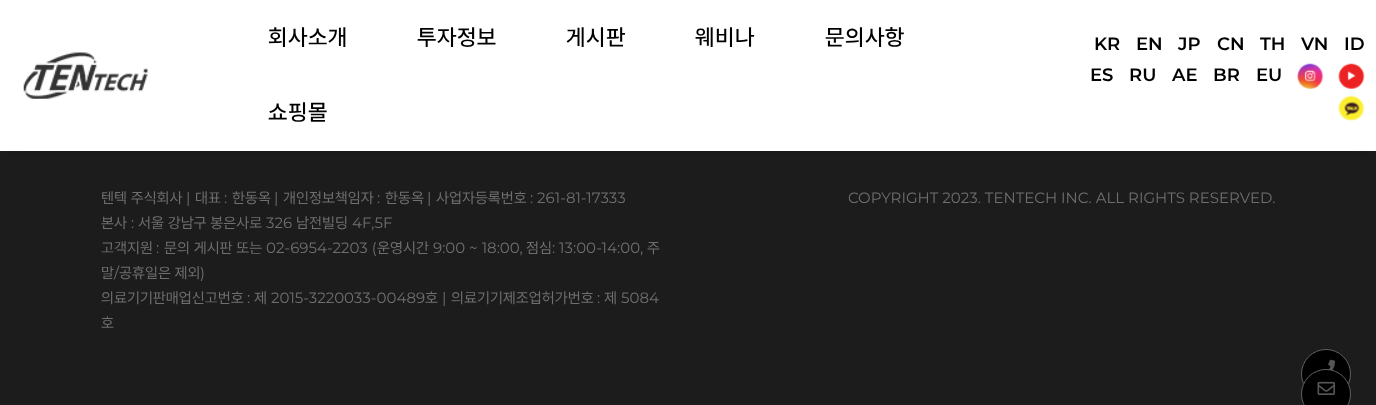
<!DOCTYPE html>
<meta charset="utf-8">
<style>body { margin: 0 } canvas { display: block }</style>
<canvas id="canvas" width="1376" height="405"></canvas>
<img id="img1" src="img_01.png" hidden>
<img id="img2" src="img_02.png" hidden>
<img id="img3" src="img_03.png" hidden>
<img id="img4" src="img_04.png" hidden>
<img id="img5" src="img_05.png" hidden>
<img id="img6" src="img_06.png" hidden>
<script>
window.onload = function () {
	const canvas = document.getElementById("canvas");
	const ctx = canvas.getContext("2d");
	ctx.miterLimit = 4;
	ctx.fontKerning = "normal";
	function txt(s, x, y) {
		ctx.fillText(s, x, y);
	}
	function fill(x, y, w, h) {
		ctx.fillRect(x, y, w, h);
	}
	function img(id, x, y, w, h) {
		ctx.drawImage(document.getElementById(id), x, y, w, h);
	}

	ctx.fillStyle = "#1C1C1C";
	fill(0, 0, 1376, 405);
	ctx.fillStyle = "rgba(0, 0, 0, 0.6)";
	ctx.filter = "blur(6px)";
	ctx.beginPath();
	ctx.rect(13, 19, 1351, 126);
	ctx.fill();
	ctx.filter = "none";
	ctx.fillStyle = "#FFFFFF";
	fill(0, 0, 1376, 151);
	img("img1", 23, 52, 125, 47);
	img("img2", 1297, 63, 27, 26);
	img("img3", 1338, 63, 27, 26);
	img("img4", 1338, 95, 27, 26);
	ctx.fillStyle = "#000000";
	ctx.beginPath();
	ctx.arc(1326, 374, 24.5, 0, Math.PI * 2);
	ctx.fill();
	ctx.strokeStyle = "#616060";
	ctx.stroke();
	img("img5", 1328, 359, 7, 11);
	ctx.beginPath();
	ctx.arc(1326, 394, 24.5, 0, Math.PI * 2);
	ctx.fill();
	ctx.stroke();
	img("img6", 1317, 381, 18, 14);
	ctx.letterSpacing = "0.5px";
	ctx.font = "500 22.5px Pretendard";
	txt("회사소개", 268, 45);
	txt("투자정보", 417, 45);
	txt("게시판", 566, 45);
	txt("웨비나", 695, 45);
	txt("문의사항", 825, 45);
	txt("쇼핑몰", 268, 120);
	ctx.letterSpacing = "0px";
	ctx.font = "600 18px Montserrat";
	txt("KR", 1094, 50);
	txt("EN", 1136, 50);
	txt("JP", 1178, 50);
	txt("CN", 1217, 50);
	txt("TH", 1260, 50);
	txt("VN", 1301, 50);
	txt("ID", 1344, 50);
	txt("ES", 1090, 81);
	txt("RU", 1129, 81);
	txt("AE", 1172, 81);
	txt("BR", 1213, 81);
	txt("EU", 1256, 81);
	ctx.font = "15px Pretendard";
	ctx.fillStyle = "#6F6F6F";
	txt("텐텍 주식회사", 101, 203);
	ctx.font = "15px Montserrat";
	txt("|", 186, 203);
	ctx.font = "15px Pretendard";
	txt("대표", 195, 203);
	ctx.font = "15px Montserrat";
	txt(":", 224, 203);
	ctx.font = "15px Pretendard";
	txt("한동옥", 232, 203);
	ctx.font = "15px Montserrat";
	txt("|", 274, 203);
	ctx.font = "15px Pretendard";
	txt("개인정보책임자", 283, 203);
	ctx.font = "15px Montserrat";
	txt(":", 377, 203);
	ctx.font = "15px Pretendard";
	txt("한동옥", 385, 203);
	ctx.font = "15px Montserrat";
	txt("|", 427, 203);
	ctx.font = "15px Pretendard";
	txt("사업자등록번호", 436, 203);
	ctx.font = "15px Montserrat";
	txt(": 261-81-17333", 530, 203);
	ctx.font = "15px Pretendard";
	txt("본사", 101, 228);
	ctx.font = "15px Montserrat";
	txt(":", 131, 228);
	ctx.font = "15px Pretendard";
	txt("서울 강남구 봉은사로", 138, 228);
	ctx.font = "15px Montserrat";
	txt("326", 266, 228);
	ctx.font = "15px Pretendard";
	txt("남전빌딩", 296, 228);
	ctx.font = "15px Montserrat";
	txt("4F,5F", 352, 228);
	ctx.font = "15px Pretendard";
	txt("고객지원", 101, 253);
	ctx.font = "15px Montserrat";
	txt(":", 156, 253);
	ctx.font = "15px Pretendard";
	txt("문의 게시판 또는", 164, 253);
	ctx.font = "15px Montserrat";
	txt("02-6954-2203 (", 266, 253);
	ctx.font = "15px Pretendard";
	txt("운영시간", 377, 253);
	ctx.font = "15px Montserrat";
	txt("9:00 ~ 18:00,", 433, 253);
	ctx.font = "15px Pretendard";
	txt("점심", 526, 253);
	ctx.font = "15px Montserrat";
	txt(": 13:00-14:00,", 552, 253);
	ctx.font = "15px Pretendard";
	txt("주", 647, 253);
	txt("말", 101, 278);
	ctx.font = "15px Montserrat";
	txt("/", 114, 278);
	ctx.font = "15px Pretendard";
	txt("공휴일은 제외", 119, 278);
	ctx.font = "15px Montserrat";
	txt(")", 200, 278);
	ctx.font = "15px Pretendard";
	txt("의료기기판매업신고번호", 101, 303);
	ctx.font = "15px Montserrat";
	txt(":", 247, 303);
	ctx.font = "15px Pretendard";
	txt("제", 254, 303);
	ctx.font = "15px Montserrat";
	txt("2015-3220033-00489", 271, 303);
	ctx.font = "15px Pretendard";
	txt("호", 425, 303);
	ctx.font = "15px Montserrat";
	txt("|", 442, 303);
	ctx.font = "15px Pretendard";
	txt("의료기기제조업허가번호", 451, 303);
	ctx.font = "15px Montserrat";
	txt(":", 597, 303);
	ctx.font = "15px Pretendard";
	txt("제", 604, 303);
	ctx.font = "15px Montserrat";
	txt("5084", 621, 303);
	ctx.font = "15px Pretendard";
	txt("호", 101, 328);
	ctx.font = "15px Montserrat";
	txt("COPYRIGHT 2023. TENTECH INC. ALL RIGHTS RESERVED.", 848, 203);
};
</script>
